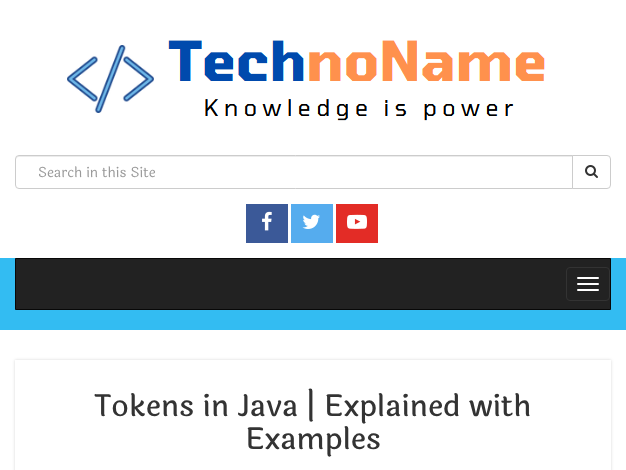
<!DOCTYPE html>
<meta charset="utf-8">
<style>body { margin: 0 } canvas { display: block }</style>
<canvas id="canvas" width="626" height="470"></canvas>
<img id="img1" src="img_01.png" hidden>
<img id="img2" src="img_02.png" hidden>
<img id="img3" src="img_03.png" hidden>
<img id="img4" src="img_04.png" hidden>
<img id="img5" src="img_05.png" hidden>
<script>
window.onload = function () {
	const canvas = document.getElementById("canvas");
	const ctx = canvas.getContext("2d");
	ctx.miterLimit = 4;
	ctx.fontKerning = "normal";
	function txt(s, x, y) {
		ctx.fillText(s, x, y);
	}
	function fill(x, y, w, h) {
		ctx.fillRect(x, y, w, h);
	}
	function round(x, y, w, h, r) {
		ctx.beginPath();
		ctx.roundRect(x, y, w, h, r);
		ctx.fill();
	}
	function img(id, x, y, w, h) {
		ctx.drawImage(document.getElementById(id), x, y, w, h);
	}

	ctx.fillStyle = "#FFFFFF";
	fill(0, 0, 626, 470);
	img("img1", 67, 40, 478, 81);
	ctx.fillStyle = "#ECECEC";
	ctx.beginPath();
	ctx.moveTo(19, 157);
	ctx.lineTo(572, 157);
	ctx.lineTo(572, 156);
	ctx.lineTo(19, 156);
	ctx.bezierCurveTo(17, 156, 16, 157, 16, 159);
	ctx.lineTo(16, 160);
	ctx.bezierCurveTo(16, 158, 17, 157, 19, 157);
	ctx.closePath();
	ctx.fill();
	ctx.beginPath();
	ctx.roundRect(15.5, 155.5, 557, 33, [3.5, 0, 0, 3.5]);
	ctx.strokeStyle = "#CCCCCC";
	ctx.stroke();
	ctx.fillStyle = "#FFFFFF";
	ctx.beginPath();
	ctx.roundRect(572.5, 155.5, 38, 33, [0, 3.5, 3.5, 0]);
	ctx.fill();
	ctx.stroke();
	img("img2", 585, 165, 13, 13);
	ctx.fillStyle = "#3B5998";
	fill(246, 204, 42, 39);
	img("img3", 262, 211, 10, 20);
	ctx.fillStyle = "#55ACEE";
	fill(291, 204, 42, 39);
	img("img4", 302, 214, 18, 15);
	ctx.fillStyle = "#E32C26";
	fill(336, 204, 42, 39);
	img("img5", 347, 214, 20, 15);
	ctx.fillStyle = "#33BCF2";
	fill(0, 258, 626, 72);
	ctx.fillStyle = "#222222";
	ctx.beginPath();
	ctx.rect(15.5, 258.5, 595, 51);
	ctx.fill();
	ctx.strokeStyle = "#080808";
	ctx.stroke();
	ctx.beginPath();
	ctx.roundRect(566.5, 267.5, 43, 33, 3.5);
	ctx.strokeStyle = "#333333";
	ctx.stroke();
	ctx.fillStyle = "#FFFFFF";
	round(577, 277, 22, 2, 1);
	round(577, 283, 22, 2, 1);
	round(577, 289, 22, 2, 1);
	ctx.save();
	ctx.beginPath();
	ctx.moveTo(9, 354);
	ctx.lineTo(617, 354);
	ctx.lineTo(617, 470);
	ctx.lineTo(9, 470);
	ctx.closePath();
	ctx.moveTo(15, 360);
	ctx.lineTo(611, 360);
	ctx.lineTo(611, 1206);
	ctx.lineTo(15, 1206);
	ctx.closePath();
	ctx.clip("evenodd");
	ctx.fillStyle = "rgba(1, 1, 1, 0.16)";
	ctx.filter = "blur(1.5px)";
	ctx.beginPath();
	ctx.rect(15, 360, 596, 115);
	ctx.fill();
	ctx.filter = "none";
	ctx.restore();
	ctx.font = "14px Laila";
	ctx.fillStyle = "#999999";
	txt("Search in this Site", 38, 177);
	ctx.font = "500 30px Laila";
	ctx.fillStyle = "#333333";
	txt("Tokens in Java | Explained with", 94, 416);
	txt("Examples", 245, 449);
};
</script>
